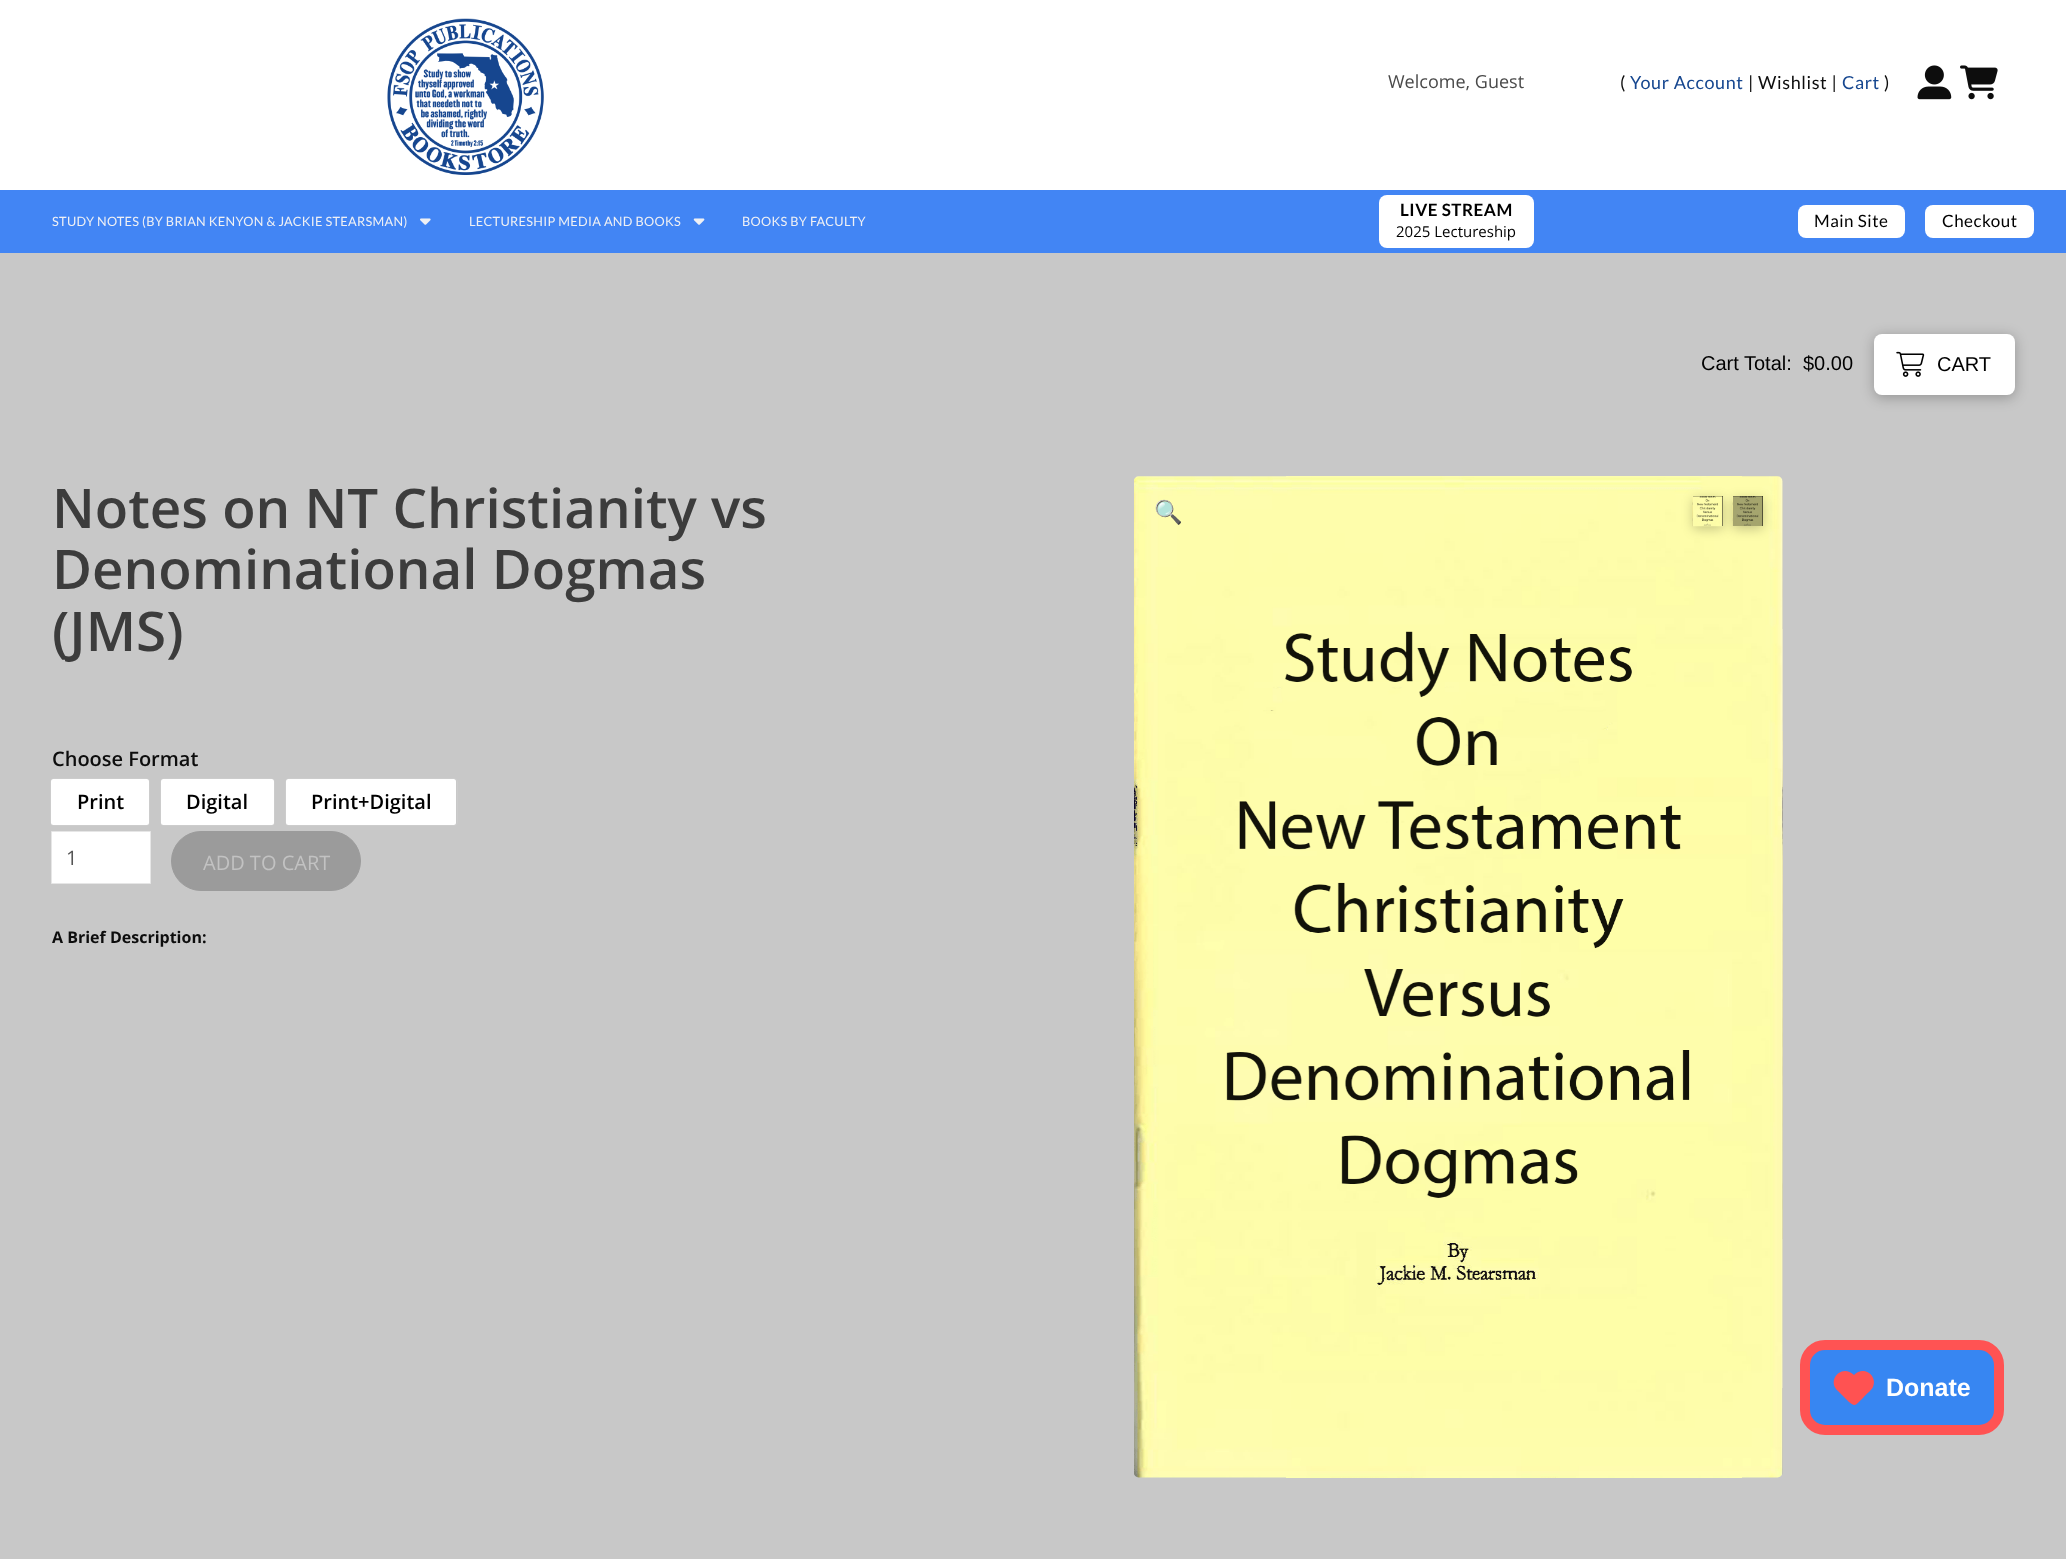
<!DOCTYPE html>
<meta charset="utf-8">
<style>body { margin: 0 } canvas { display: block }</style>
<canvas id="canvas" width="2066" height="1559"></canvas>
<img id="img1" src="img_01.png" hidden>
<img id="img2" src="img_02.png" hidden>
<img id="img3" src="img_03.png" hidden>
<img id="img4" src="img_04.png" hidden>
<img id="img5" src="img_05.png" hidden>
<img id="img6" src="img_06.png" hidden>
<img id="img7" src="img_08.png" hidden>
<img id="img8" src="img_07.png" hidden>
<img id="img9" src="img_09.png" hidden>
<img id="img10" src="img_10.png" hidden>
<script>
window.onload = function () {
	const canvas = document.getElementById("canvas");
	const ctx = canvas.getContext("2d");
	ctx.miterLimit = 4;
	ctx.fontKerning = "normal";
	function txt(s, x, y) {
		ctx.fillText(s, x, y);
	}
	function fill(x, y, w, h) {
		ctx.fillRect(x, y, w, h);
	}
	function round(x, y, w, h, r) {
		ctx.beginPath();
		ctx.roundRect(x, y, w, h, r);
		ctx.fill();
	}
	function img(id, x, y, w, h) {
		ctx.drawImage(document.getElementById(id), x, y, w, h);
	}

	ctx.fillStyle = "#FFFFFF";
	fill(0, 0, 2066, 1559);
	img("img1", 387, 18, 157, 157);
	img("img2", 1917, 65, 35, 35);
	img("img3", 1960, 65, 38, 35);
	ctx.fillStyle = "#4285F4";
	fill(0, 190, 2066, 63);
	img("img4", 420, 218, 11, 7);
	img("img5", 693, 218, 12, 7);
	ctx.fillStyle = "#FFFFFF";
	round(1379, 195, 155, 53, 8);
	round(1798, 205, 107, 33, 8);
	round(1925, 205, 109, 33, 8);
	ctx.fillStyle = "#C8C8C8";
	fill(0, 253, 2066, 1306);
	ctx.fillStyle = "rgba(0, 0, 0, 0.25)";
	ctx.filter = "blur(6.5px)";
	ctx.beginPath();
	ctx.roundRect(1874, 336, 141, 62, 8);
	ctx.fill();
	ctx.filter = "none";
	ctx.fillStyle = "#FFFFFF";
	round(1874, 334, 141, 61, 8);
	img("img6", 1896, 351, 29, 26);
	ctx.beginPath();
	ctx.roundRect(50.5, 778.5, 99, 47, 3.5);
	ctx.strokeStyle = "#CCCCCC";
	ctx.stroke();
	round(51, 779, 98, 46, 2.5);
	ctx.beginPath();
	ctx.roundRect(160.5, 778.5, 114, 47, 3.5);
	ctx.stroke();
	round(161, 779, 113, 46, 2.5);
	ctx.beginPath();
	ctx.roundRect(285.5, 778.5, 172, 47, 3.5);
	ctx.stroke();
	round(286, 779, 170, 46, 2.5);
	ctx.beginPath();
	ctx.rect(51.5, 831.5, 99, 52);
	ctx.fill();
	ctx.strokeStyle = "#E6E6E6";
	ctx.stroke();
	ctx.fillStyle = "#9B9B9B";
	ctx.beginPath();
	ctx.roundRect(171.5, 831.5, 189, 59, 29.5);
	ctx.fill();
	ctx.strokeStyle = "#9B9B9B";
	ctx.stroke();
	img("img7", 1782, 479, 1, 996);
	img("img8", 1134, 476, 649, 1002);
	ctx.fillStyle = "rgba(0, 0, 0, 0.22)";
	ctx.filter = "blur(6px)";
	ctx.beginPath();
	ctx.rect(1693, 499, 30, 30);
	ctx.fill();
	ctx.filter = "none";
	ctx.fillStyle = "#000000";
	fill(1693, 496, 30, 30);
	img("img9", 1692, 496, 31, 31);
	ctx.fillStyle = "rgba(0, 0, 0, 0.22)";
	ctx.filter = "blur(6px)";
	ctx.beginPath();
	ctx.rect(1733, 499, 30, 30);
	ctx.fill();
	ctx.filter = "none";
	ctx.fillStyle = "#000000";
	fill(1733, 496, 30, 30);
	img("img10", 1732, 496, 31, 30);
	ctx.fillStyle = "#3786F2";
	ctx.beginPath();
	ctx.roundRect(1805, 1345, 194, 85, 20);
	ctx.fill();
	ctx.strokeStyle = "#FF5353";
	ctx.lineWidth = 10;
	ctx.stroke();
	ctx.fillStyle = "#FF5252";
	ctx.beginPath();
	ctx.moveTo(1838, 1391);
	ctx.lineTo(1852, 1404);
	ctx.lineTo(1838, 1391);
	ctx.lineTo(1849, 1402);
	ctx.bezierCurveTo(1856, 1408, 1856, 1404, 1863, 1398);
	ctx.bezierCurveTo(1866, 1394, 1871, 1391, 1873, 1387);
	ctx.bezierCurveTo(1878, 1375, 1863, 1365, 1854, 1375);
	ctx.bezierCurveTo(1842, 1363, 1826, 1380, 1838, 1391);
	ctx.closePath();
	ctx.fill();
	ctx.font = "18px Open Sans";
	ctx.fillStyle = "#494949";
	txt("Welcome, Guest", 1388, 88);
	ctx.letterSpacing = "0.6px";
	ctx.font = "18px Lato";
	ctx.fillStyle = "#0D0D0D";
	txt("(", 1620, 89);
	ctx.fillStyle = "#15468F";
	txt("Your Account", 1630, 89);
	ctx.fillStyle = "#0D0D0D";
	txt("| Wishlist |", 1748, 89);
	ctx.fillStyle = "#15468F";
	txt("Cart", 1842, 89);
	ctx.fillStyle = "#0D0D0D";
	txt(")", 1884, 89);
	ctx.letterSpacing = "0.3px";
	ctx.font = "12.75px Lato";
	ctx.fillStyle = "#EFF0F4";
	txt("STUDY NOTES (BY BRIAN KENYON & JACKIE STEARSMAN)", 52, 226);
	txt("LECTURESHIP MEDIA AND BOOKS", 469, 226);
	txt("BOOKS BY FACULTY", 742, 226);
	ctx.letterSpacing = "0.5px";
	ctx.font = "bold 17px Lato";
	ctx.fillStyle = "#000000";
	txt("LIVE STREAM", 1400, 216);
	ctx.letterSpacing = "0px";
	ctx.font = "15px Open Sans";
	txt("2025 Lectureship", 1396, 237);
	ctx.letterSpacing = "0.5px";
	ctx.font = "17px Lato";
	txt("Main Site", 1814, 227);
	txt("Checkout", 1942, 227);
	ctx.letterSpacing = "0px";
	ctx.font = "20px Liberation Sans";
	txt("Cart Total:", 1701, 370);
	txt("$0.00", 1803, 370);
	txt("CART", 1937, 371);
	ctx.font = "600 54.7px Open Sans";
	ctx.fillStyle = "#3C3C3C";
	txt("Notes on NT Christianity vs", 52, 528);
	txt("Denominational Dogmas", 52, 589);
	txt("(JMS)", 52, 651);
	ctx.font = "600 20px Open Sans";
	ctx.fillStyle = "#0D0D0D";
	txt("Choose Format", 52, 766);
	ctx.fillStyle = "#000000";
	txt("Print", 77, 809);
	txt("Digital", 186, 809);
	txt("Print+Digital", 311, 809);
	ctx.font = "20px Open Sans";
	ctx.fillStyle = "#555555";
	txt("1", 66, 865);
	ctx.fillStyle = "#C2C2C2";
	txt("ADD TO CART", 203, 870);
	ctx.font = "bold 16px Open Sans";
	ctx.fillStyle = "#0D0D0D";
	txt("A Brief Description:", 52, 943);
	ctx.font = "23px Noto Color Emoji";
	ctx.fillStyle = "#15468F";
	txt("🔍", 1154, 520);
	ctx.font = "bold 25px Liberation Sans";
	ctx.fillStyle = "#FFFFFF";
	txt("Donate", 1886, 1396);
};
</script>
